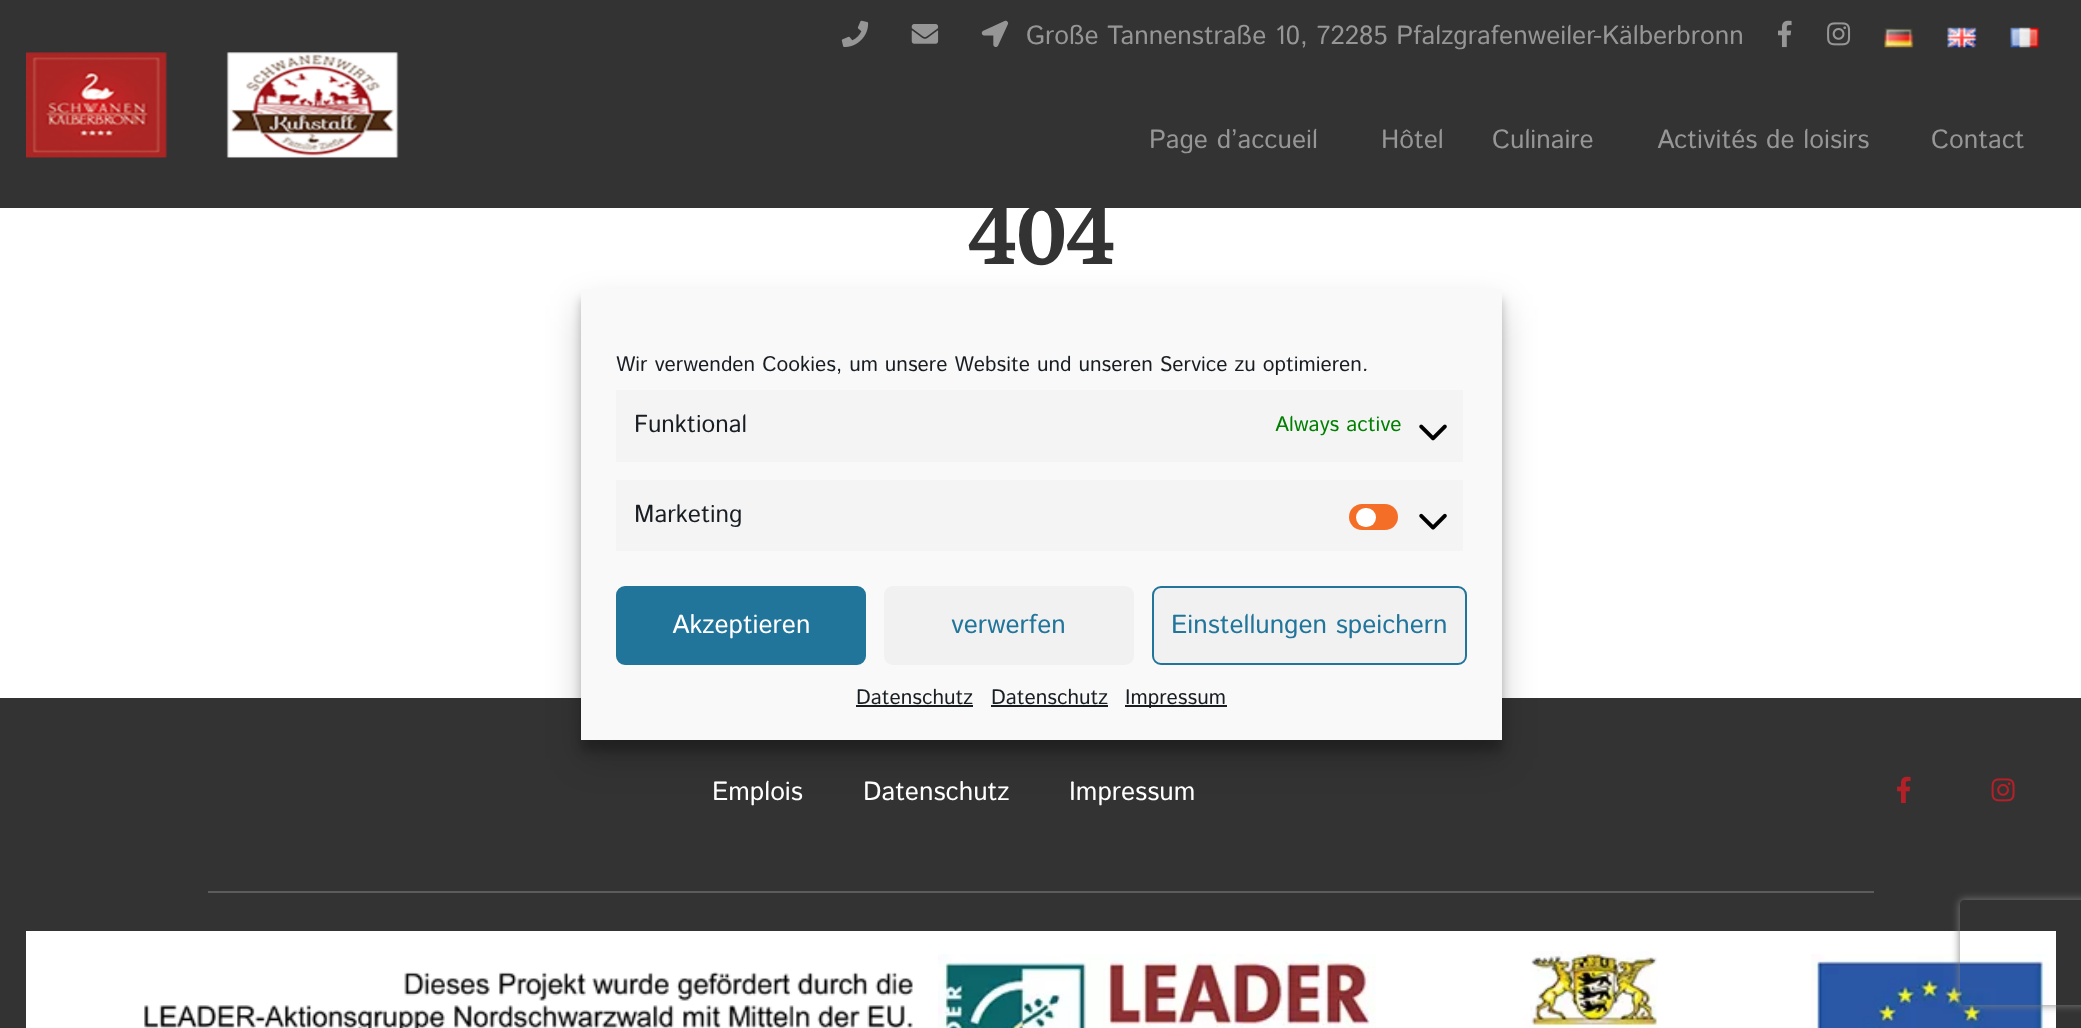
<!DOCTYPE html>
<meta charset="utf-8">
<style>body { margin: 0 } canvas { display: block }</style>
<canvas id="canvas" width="2081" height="1028"></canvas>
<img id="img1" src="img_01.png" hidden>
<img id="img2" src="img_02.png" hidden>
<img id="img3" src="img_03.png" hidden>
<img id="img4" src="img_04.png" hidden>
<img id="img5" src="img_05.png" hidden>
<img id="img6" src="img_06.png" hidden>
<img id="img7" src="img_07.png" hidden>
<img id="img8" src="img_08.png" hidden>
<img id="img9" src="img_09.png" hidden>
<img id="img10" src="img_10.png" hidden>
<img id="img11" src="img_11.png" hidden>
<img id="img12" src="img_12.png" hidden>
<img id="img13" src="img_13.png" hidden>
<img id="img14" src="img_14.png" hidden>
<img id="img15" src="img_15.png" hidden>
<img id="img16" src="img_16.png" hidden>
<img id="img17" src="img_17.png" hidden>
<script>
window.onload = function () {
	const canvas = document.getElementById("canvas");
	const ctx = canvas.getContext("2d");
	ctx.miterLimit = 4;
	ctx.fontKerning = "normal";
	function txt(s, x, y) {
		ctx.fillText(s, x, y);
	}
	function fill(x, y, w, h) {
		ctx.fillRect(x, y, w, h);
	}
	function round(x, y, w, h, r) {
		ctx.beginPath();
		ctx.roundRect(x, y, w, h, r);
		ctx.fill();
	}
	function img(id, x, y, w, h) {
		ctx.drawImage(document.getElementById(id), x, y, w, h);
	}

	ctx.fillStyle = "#FFFFFF";
	fill(0, 0, 2081, 1028);
	ctx.fillStyle = "#333333";
	fill(0, 0, 2081, 208);
	img("img1", 26, 52, 373, 106);
	img("img2", 841, 20, 28, 27);
	img("img3", 911, 24, 28, 20);
	img("img4", 981, 20, 28, 27);
	img("img5", 1778, 20, 14, 28);
	img("img6", 1827, 22, 24, 24);
	img("img7", 1884, 28, 30, 20);
	img("img8", 1947, 27, 30, 21);
	img("img9", 2010, 27, 29, 21);
	fill(0, 698, 2081, 330);
	ctx.fillStyle = "rgba(0, 0, 0, 0.23)";
	ctx.filter = "blur(5px)";
	ctx.beginPath();
	ctx.rect(581, 299, 921, 452);
	ctx.fill();
	ctx.filter = "none";
	ctx.fillStyle = "rgba(0, 0, 0, 0.19)";
	ctx.filter = "blur(17.5px)";
	ctx.beginPath();
	ctx.rect(581, 306, 921, 452);
	ctx.fill();
	ctx.filter = "none";
	ctx.fillStyle = "#F9F9F9";
	fill(581, 289, 921, 451);
	ctx.fillStyle = "#F4F4F4";
	fill(616, 390, 847, 72);
	img("img10", 1419, 424, 28, 17);
	fill(616, 480, 847, 71);
	ctx.fillStyle = "#F56E28";
	round(1349, 504, 49, 26, 13);
	ctx.fillStyle = "#FFFFFF";
	round(1356, 508, 20, 19, 9.5);
	img("img11", 1419, 513, 28, 17);
	ctx.fillStyle = "#21759B";
	ctx.beginPath();
	ctx.roundRect(617, 587, 248, 77, 8);
	ctx.fill();
	ctx.strokeStyle = "#21759B";
	ctx.lineWidth = 2;
	ctx.stroke();
	ctx.fillStyle = "#F1F1F1";
	round(884, 586, 250, 79, 9);
	ctx.beginPath();
	ctx.roundRect(1153, 587, 313, 77, 8);
	ctx.fill();
	ctx.stroke();
	ctx.fillStyle = "#191E23";
	fill(856, 705, 117, 2);
	fill(991, 705, 117, 2);
	fill(1125, 705, 102, 2);
	img("img12", 1897, 776, 14, 28);
	img("img13", 1991, 778, 24, 24);
	ctx.fillStyle = "#5C5C5C";
	fill(208, 891, 1666, 2);
	ctx.fillStyle = "#FFFFFF";
	fill(26, 931, 2030, 97);
	img("img14", 144, 971, 769, 57);
	img("img15", 938, 954, 438, 74);
	img("img16", 1524, 951, 134, 77);
	img("img17", 1811, 954, 238, 74);
	ctx.save();
	ctx.beginPath();
	ctx.moveTo(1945, 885);
	ctx.lineTo(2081, 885);
	ctx.lineTo(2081, 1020);
	ctx.lineTo(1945, 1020);
	ctx.closePath();
	ctx.moveTo(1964, 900);
	ctx.lineTo(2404, 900);
	ctx.bezierCurveTo(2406, 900, 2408, 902, 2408, 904);
	ctx.lineTo(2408, 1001);
	ctx.bezierCurveTo(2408, 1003, 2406, 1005, 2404, 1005);
	ctx.lineTo(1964, 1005);
	ctx.bezierCurveTo(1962, 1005, 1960, 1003, 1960, 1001);
	ctx.lineTo(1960, 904);
	ctx.bezierCurveTo(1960, 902, 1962, 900, 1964, 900);
	ctx.closePath();
	ctx.clip("evenodd");
	ctx.fillStyle = "#808080";
	ctx.filter = "blur(4.5px)";
	ctx.beginPath();
	ctx.roundRect(1960, 900, 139, 105, 4);
	ctx.fill();
	ctx.filter = "none";
	ctx.restore();
	ctx.font = "26.3px Istok Web";
	ctx.fillStyle = "#969696";
	txt("Große Tannenstraße 10", 1026, 44);
	txt(", 72285 Pfalzgrafenweiler-Kälberbronn", 1300, 44);
	txt("Page d’accueil", 1149, 148);
	txt("Hôtel", 1381, 148);
	txt("Culinaire", 1492, 148);
	txt("Activités de loisirs", 1657, 148);
	txt("Contact", 1931, 148);
	ctx.font = "bold 84px Literata";
	ctx.fillStyle = "#333333";
	txt("404", 968, 264);
	ctx.font = "21px Istok Web";
	ctx.fillStyle = "#191E23";
	txt("Wir verwenden Cookies, um unsere Website und unseren Service zu optimieren.", 616, 371);
	ctx.font = "24.5px Istok Web";
	txt("Funktional", 634, 432);
	ctx.font = "21px Istok Web";
	ctx.fillStyle = "#008000";
	txt("Always active", 1275, 431);
	ctx.font = "24.5px Istok Web";
	ctx.fillStyle = "#191E23";
	txt("Marketing", 634, 522);
	ctx.font = "26.25px Istok Web";
	ctx.fillStyle = "#FFFFFF";
	txt("Akzeptieren", 672, 633);
	ctx.fillStyle = "#21759B";
	txt("verwerfen", 951, 633);
	txt("Einstellungen speichern", 1171, 633);
	ctx.font = "21px Istok Web";
	ctx.fillStyle = "#191E23";
	txt("Datenschutz", 856, 704);
	txt("Datenschutz", 991, 704);
	txt("Impressum", 1125, 704);
	ctx.font = "26.3px Istok Web";
	ctx.fillStyle = "#FFFFFF";
	txt("Emplois", 712, 800);
	txt("Datenschutz", 863, 800);
	txt("Impressum", 1069, 800);
};
</script>
